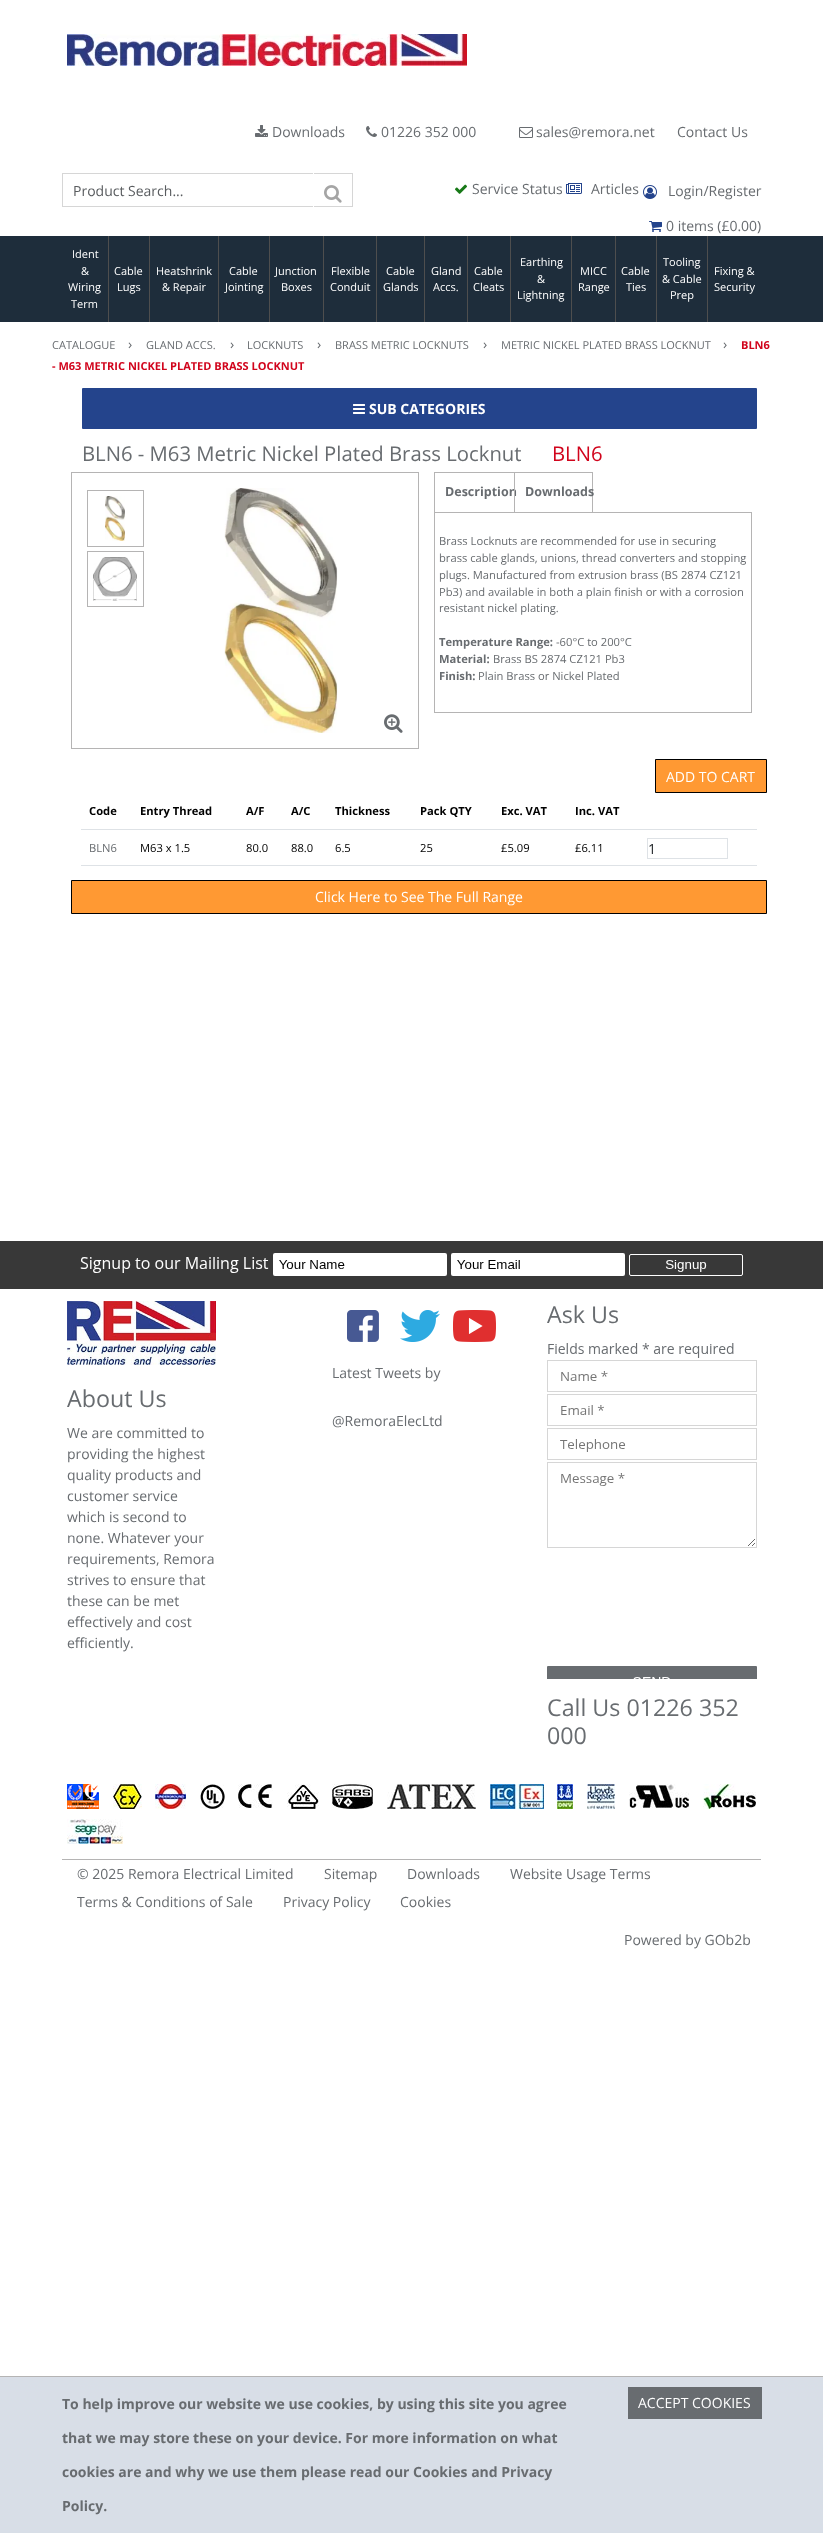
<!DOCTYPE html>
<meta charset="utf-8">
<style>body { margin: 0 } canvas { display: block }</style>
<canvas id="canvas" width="823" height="2533"></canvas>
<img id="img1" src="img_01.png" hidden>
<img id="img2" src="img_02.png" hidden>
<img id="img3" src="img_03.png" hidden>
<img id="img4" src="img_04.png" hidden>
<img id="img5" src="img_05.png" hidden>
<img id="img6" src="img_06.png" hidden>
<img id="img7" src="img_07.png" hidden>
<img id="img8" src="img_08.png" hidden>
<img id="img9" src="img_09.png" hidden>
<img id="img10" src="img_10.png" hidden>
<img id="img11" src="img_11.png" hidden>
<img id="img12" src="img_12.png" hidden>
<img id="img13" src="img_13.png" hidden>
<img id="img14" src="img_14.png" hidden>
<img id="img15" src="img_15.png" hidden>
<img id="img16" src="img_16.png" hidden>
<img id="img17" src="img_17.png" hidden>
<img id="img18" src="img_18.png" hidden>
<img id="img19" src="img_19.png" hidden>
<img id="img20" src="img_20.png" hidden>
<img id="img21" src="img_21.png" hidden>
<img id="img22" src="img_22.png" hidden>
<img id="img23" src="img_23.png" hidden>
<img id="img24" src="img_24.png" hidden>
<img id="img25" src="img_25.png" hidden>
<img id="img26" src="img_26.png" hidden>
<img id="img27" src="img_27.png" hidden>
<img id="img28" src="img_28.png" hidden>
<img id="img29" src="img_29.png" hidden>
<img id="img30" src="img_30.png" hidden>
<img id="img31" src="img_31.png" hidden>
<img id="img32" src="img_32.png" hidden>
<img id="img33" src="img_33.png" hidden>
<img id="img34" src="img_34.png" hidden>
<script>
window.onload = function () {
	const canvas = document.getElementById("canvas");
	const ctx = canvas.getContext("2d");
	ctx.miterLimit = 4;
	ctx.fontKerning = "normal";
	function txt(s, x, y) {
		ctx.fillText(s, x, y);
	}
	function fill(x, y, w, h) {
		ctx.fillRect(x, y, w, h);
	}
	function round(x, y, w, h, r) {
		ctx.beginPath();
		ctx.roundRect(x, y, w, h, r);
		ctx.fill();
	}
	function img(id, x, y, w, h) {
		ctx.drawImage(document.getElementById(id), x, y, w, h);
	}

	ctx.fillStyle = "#FFFFFF";
	fill(0, 0, 823, 2533);
	img("img1", 67, 34, 400, 32);
	img("img2", 255, 125, 13, 12);
	img("img3", 366, 126, 11, 11);
	img("img4", 519, 127, 14, 11);
	ctx.fillStyle = "#D6D6D6";
	fill(62, 173, 251, 1);
	fill(62, 206, 251, 1);
	fill(62, 173, 1, 34);
	fill(314, 173, 39, 1);
	fill(352, 174, 1, 33);
	fill(314, 206, 39, 1);
	img("img5", 324, 185, 18, 18);
	img("img6", 455, 184, 12, 10);
	img("img7", 566, 183, 16, 11);
	img("img8", 643, 185, 14, 14);
	img("img9", 649, 221, 13, 11);
	ctx.fillStyle = "#1E2D3B";
	fill(0, 236, 823, 86);
	ctx.fillStyle = "#4E4E4E";
	fill(108, 236, 1, 86);
	fill(149, 236, 1, 86);
	fill(218, 236, 1, 86);
	fill(269, 236, 1, 86);
	fill(323, 236, 1, 86);
	fill(376, 236, 1, 86);
	fill(424, 236, 1, 86);
	fill(467, 236, 1, 86);
	fill(510, 236, 1, 86);
	fill(571, 236, 1, 86);
	fill(615, 236, 1, 86);
	fill(656, 236, 1, 86);
	fill(707, 236, 1, 86);
	ctx.fillStyle = "#24448C";
	round(82, 388, 675, 41, 1);
	img("img10", 353, 404, 12, 10);
	ctx.strokeStyle = "#B5B4B4";
	ctx.strokeRect(71.5, 472.5, 347, 276);
	ctx.strokeRect(87.5, 490.5, 56, 56);
	img("img11", 105, 496, 20, 45);
	ctx.strokeRect(87.5, 551.5, 56, 55);
	img("img12", 93, 557, 44, 44);
	img("img13", 224, 488, 114, 245);
	img("img14", 384, 714, 19, 19);
	ctx.fillStyle = "#B5B4B4";
	fill(434, 472, 159, 1);
	fill(434, 472, 1, 40);
	fill(592, 472, 1, 40);
	ctx.strokeRect(434.5, 512.5, 317, 200);
	ctx.fillStyle = "#FF9933";
	ctx.beginPath();
	ctx.rect(655.5, 759.5, 111, 33);
	ctx.fill();
	ctx.strokeStyle = "#000000";
	ctx.stroke();
	ctx.fillStyle = "#DEE2E6";
	fill(81, 829, 676, 1);
	fill(81, 865, 676, 1);
	ctx.strokeStyle = "#DEE2E6";
	ctx.strokeRect(647.5, 838.5, 80, 20);
	ctx.fillStyle = "#FF9933";
	ctx.beginPath();
	ctx.rect(71.5, 880.5, 695, 33);
	ctx.fill();
	ctx.strokeStyle = "#000000";
	ctx.stroke();
	img("img15", 0, 1241, 823, 48);
	img("img16", 67, 1301, 149, 64);
	img("img17", 347, 1310, 32, 32);
	img("img18", 400, 1310, 40, 32);
	img("img19", 453, 1310, 43, 32);
	img("img20", 547, 1343, 210, 336);
	img("img21", 67, 1784, 32, 25);
	img("img22", 113, 1784, 29, 25);
	img("img23", 155, 1784, 31, 25);
	img("img24", 200, 1784, 25, 25);
	img("img25", 238, 1784, 35, 24);
	img("img26", 287, 1784, 32, 25);
	img("img27", 332, 1784, 41, 25);
	img("img28", 387, 1784, 89, 25);
	img("img29", 490, 1784, 54, 25);
	img("img30", 557, 1784, 16, 25);
	img("img31", 587, 1784, 28, 25);
	img("img32", 629, 1784, 60, 24);
	img("img33", 703, 1784, 53, 25);
	img("img34", 67, 1819, 56, 25);
	ctx.fillStyle = "#B5B4B4";
	fill(62, 1859, 699, 1);
	ctx.fillStyle = "#D8DEE7";
	fill(0, 2377, 823, 156);
	ctx.fillStyle = "#B5B4B4";
	fill(0, 2376, 823, 1);
	ctx.fillStyle = "#686C70";
	fill(628, 2387, 134, 32);
	ctx.font = "14px Open Sans";
	txt("Downloads", 272, 137);
	txt("01226 352 000", 381, 137);
	txt("sales@remora.net", 536, 137);
	txt("Contact Us", 677, 137);
	ctx.fillStyle = "#595C5F";
	txt("Product Search...", 73, 196);
	ctx.fillStyle = "#686C70";
	txt("Service Status", 472, 194);
	txt("Articles", 591, 194);
	txt("Login/Register", 668, 196);
	txt("0 items (£0.00)", 666, 231);
	ctx.font = "11px Open Sans";
	ctx.fillStyle = "#FFFFFF";
	txt("Ident", 72, 258);
	txt("&", 81, 275);
	txt("Wiring", 68, 291);
	txt("Term", 71, 308);
	txt("Cable", 114, 275);
	txt("Lugs", 117, 291);
	txt("Heatshrink", 156, 275);
	txt("& Repair", 162, 291);
	txt("Cable", 229, 275);
	txt("Jointing", 225, 291);
	txt("Junction", 275, 275);
	txt("Boxes", 281, 291);
	txt("Flexible", 331, 275);
	txt("Conduit", 330, 291);
	txt("Cable", 386, 275);
	txt("Glands", 383, 291);
	txt("Gland", 431, 275);
	txt("Accs.", 433, 291);
	txt("Cable", 474, 275);
	txt("Cleats", 473, 291);
	txt("Earthing", 520, 266);
	txt("&", 537, 283);
	txt("Lightning", 517, 299);
	txt("MICC", 580, 275);
	txt("Range", 578, 291);
	txt("Cable", 621, 275);
	txt("Ties", 626, 291);
	txt("Tooling", 663, 266);
	txt("& Cable", 662, 283);
	txt("Prep", 670, 299);
	txt("Fixing &", 714, 275);
	txt("Security", 714, 291);
	ctx.fillStyle = "#686C70";
	txt("CATALOGUE", 52, 349);
	ctx.font = "14px Open Sans";
	txt("›", 128, 349);
	ctx.font = "11px Open Sans";
	txt("GLAND ACCS.", 146, 349);
	ctx.font = "14px Open Sans";
	txt("›", 230, 349);
	ctx.font = "11px Open Sans";
	txt("LOCKNUTS", 247, 349);
	ctx.font = "14px Open Sans";
	txt("›", 317, 349);
	ctx.font = "11px Open Sans";
	txt("BRASS METRIC LOCKNUTS", 335, 349);
	ctx.font = "14px Open Sans";
	txt("›", 483, 349);
	ctx.font = "11px Open Sans";
	txt("METRIC NICKEL PLATED BRASS LOCKNUT", 501, 349);
	ctx.font = "14px Open Sans";
	txt("›", 723, 349);
	ctx.font = "bold 11px Open Sans";
	ctx.fillStyle = "#D1041C";
	txt("BLN6", 741, 349);
	txt("- M63 METRIC NICKEL PLATED BRASS LOCKNUT", 52, 370);
	ctx.font = "bold 14px Open Sans";
	ctx.fillStyle = "#FFFFFF";
	txt("SUB CATEGORIES", 369, 414);
	ctx.font = "20.3px Open Sans";
	ctx.fillStyle = "#686C70";
	txt("BLN6 - M63 Metric Nickel Plated Brass Locknut", 82, 461);
	ctx.fillStyle = "#D1041C";
	txt("BLN6", 552, 461);
	ctx.font = "bold 12.5px Open Sans";
	ctx.fillStyle = "#686C70";
	txt("Description", 445, 496);
	ctx.fillStyle = "#B5B4B4";
	fill(514, 472, 1, 40);
	ctx.fillStyle = "#686C70";
	txt("Downloads", 525, 496);
	ctx.font = "11.2px Open Sans";
	txt("Brass Locknuts are recommended for use in securing", 439, 545);
	txt("brass cable glands, unions, thread converters and stopping", 439, 562);
	txt("plugs. Manufactured from extrusion brass (BS 2874 CZ121", 439, 579);
	txt("Pb3) and available in both a plain finish or with a corrosion", 439, 596);
	txt("resistant nickel plating.", 439, 612);
	ctx.font = "bold 11.2px Open Sans";
	txt("Temperature Range:", 439, 646);
	ctx.font = "11.2px Open Sans";
	txt("-60°C to 200°C", 556, 646);
	ctx.font = "bold 11.2px Open Sans";
	txt("Material:", 439, 663);
	ctx.font = "11.2px Open Sans";
	txt("Brass BS 2874 CZ121 Pb3", 493, 663);
	ctx.font = "bold 11.2px Open Sans";
	txt("Finish:", 439, 680);
	ctx.font = "11.2px Open Sans";
	txt("Plain Brass or Nickel Plated", 478, 680);
	ctx.font = "14px Open Sans";
	ctx.fillStyle = "#FFFFFF";
	txt("ADD TO CART", 666, 782);
	ctx.font = "bold 11.2px Open Sans";
	ctx.fillStyle = "#000000";
	txt("Code", 89, 815);
	txt("Entry Thread", 140, 815);
	txt("A/F", 246, 815);
	txt("A/C", 291, 815);
	txt("Thickness", 335, 815);
	txt("Pack QTY", 420, 815);
	txt("Exc. VAT", 501, 815);
	txt("Inc. VAT", 575, 815);
	ctx.font = "11.2px Open Sans";
	ctx.fillStyle = "#686C70";
	txt("BLN6", 89, 852);
	ctx.fillStyle = "#000000";
	txt("M63 x 1.5", 140, 852);
	txt("80.0", 246, 852);
	txt("88.0", 291, 852);
	txt("6.5", 335, 852);
	txt("25", 420, 852);
	txt("£5.09", 501, 852);
	txt("£6.11", 575, 852);
	ctx.font = "14px Open Sans";
	ctx.fillStyle = "#212529";
	txt("1", 648, 854);
	ctx.fillStyle = "#FFFFFF";
	txt("Click Here to See The Full Range", 315, 902);
	ctx.font = "23.25px Open Sans";
	ctx.fillStyle = "#686C70";
	txt("About Us", 67, 1407);
	ctx.font = "14px Open Sans";
	txt("We are committed to", 67, 1438);
	txt("providing the highest", 67, 1459);
	txt("quality products and", 67, 1480);
	txt("customer service", 67, 1501);
	txt("which is second to", 67, 1522);
	txt("none. Whatever your", 67, 1543);
	txt("requirements, Remora", 67, 1564);
	txt("strives to ensure that", 67, 1585);
	txt("these can be met", 67, 1606);
	txt("effectively and cost", 67, 1627);
	txt("efficiently.", 67, 1648);
	txt("Latest Tweets by", 332, 1378);
	txt("@RemoraElecLtd", 332, 1426);
	ctx.font = "23.25px Open Sans";
	txt("Ask Us", 547, 1323);
	txt("Call Us 01226 352", 547, 1716);
	txt("000", 547, 1744);
	ctx.font = "14px Open Sans";
	txt("© 2025 Remora Electrical Limited", 77, 1879);
	txt("Sitemap", 324, 1879);
	txt("Downloads", 407, 1879);
	txt("Website Usage Terms", 510, 1879);
	txt("Terms & Conditions of Sale", 77, 1907);
	txt("Privacy Policy", 283, 1907);
	txt("Cookies", 400, 1907);
	txt("Powered by GOb2b", 624, 1945);
	ctx.font = "bold 14px Open Sans";
	txt("To help improve our website we use cookies, by using this site you agree", 62, 2409);
	txt("that we may store these on your device. For more information on what", 62, 2443);
	txt("cookies are and why we use them please read our Cookies and Privacy", 62, 2477);
	txt("Policy.", 62, 2511);
	ctx.font = "14px Open Sans";
	ctx.fillStyle = "#FFFFFF";
	txt("ACCEPT COOKIES", 638, 2408);
};
</script>
